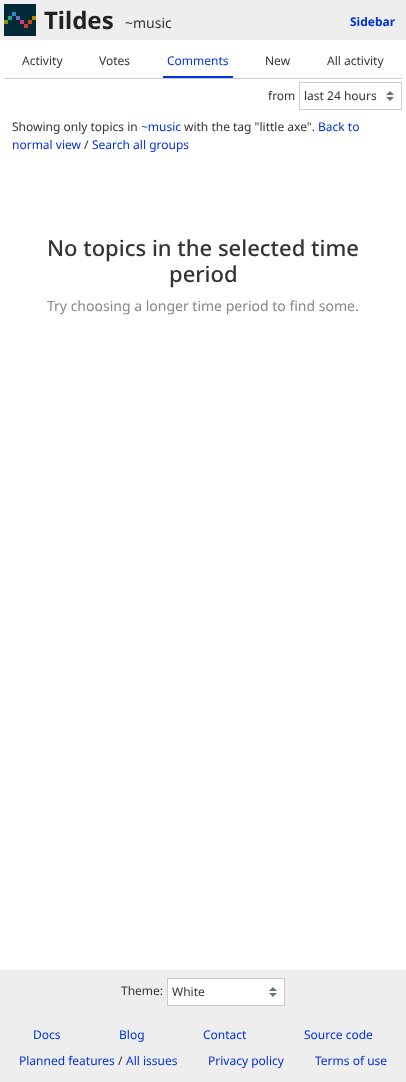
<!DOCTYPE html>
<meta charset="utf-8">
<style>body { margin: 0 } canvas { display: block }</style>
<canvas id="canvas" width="406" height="1082"></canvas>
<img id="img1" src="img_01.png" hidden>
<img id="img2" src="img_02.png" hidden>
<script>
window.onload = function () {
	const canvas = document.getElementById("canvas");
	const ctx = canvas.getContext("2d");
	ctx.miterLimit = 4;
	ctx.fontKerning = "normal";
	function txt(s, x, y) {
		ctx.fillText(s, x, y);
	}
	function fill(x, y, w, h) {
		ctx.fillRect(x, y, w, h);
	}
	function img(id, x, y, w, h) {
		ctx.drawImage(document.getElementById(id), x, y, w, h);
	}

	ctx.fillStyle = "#EEEEEE";
	fill(0, 0, 406, 1082);
	img("img1", 4, 4, 32, 32);
	ctx.fillStyle = "#FFFFFF";
	fill(0, 40, 406, 930);
	ctx.fillStyle = "#CCCCCC";
	fill(4, 78, 398, 1);
	ctx.fillStyle = "#0030E0";
	fill(163, 76, 70, 2);
	img("img2", 386, 91, 8, 10);
	ctx.strokeStyle = "#CCCCCC";
	ctx.strokeRect(299.5, 82.5, 102, 27);
	ctx.fillStyle = "#FFFFFF";
	fill(168, 979, 116, 26);
	img("img2", 269, 987, 8, 10);
	ctx.strokeRect(167.5, 978.5, 117, 27);
	ctx.font = "bold 24px Noto Sans";
	ctx.fillStyle = "#222222";
	txt("Tildes", 44, 29);
	ctx.font = "14px Noto Sans";
	ctx.fillStyle = "#333333";
	txt("~music", 125, 28);
	ctx.font = "bold 12px Noto Sans";
	ctx.fillStyle = "#0030E0";
	txt("Sidebar", 350, 26);
	ctx.font = "12px Noto Sans";
	ctx.fillStyle = "#333333";
	txt("Activity", 22, 65);
	txt("Votes", 99, 65);
	ctx.fillStyle = "#0030E0";
	txt("Comments", 167, 65);
	ctx.fillStyle = "#333333";
	txt("New", 265, 65);
	txt("All activity", 327, 65);
	txt("from", 268, 100);
	txt("last 24 hours", 304, 100);
	txt("Showing only topics in", 12, 131);
	ctx.fillStyle = "#0030E0";
	txt("~music", 141, 131);
	ctx.fillStyle = "#333333";
	txt("with the tag \"little axe\".", 184, 131);
	ctx.fillStyle = "#0030E0";
	txt("Back to", 318, 131);
	txt("normal view", 12, 149);
	ctx.fillStyle = "#333333";
	txt("/", 84, 149);
	ctx.fillStyle = "#0030E0";
	txt("Search all groups", 92, 149);
	ctx.font = "500 22px Noto Sans";
	ctx.fillStyle = "#333333";
	txt("No topics in the selected time", 47, 256);
	txt("period", 169, 282);
	ctx.font = "14px Noto Sans";
	ctx.fillStyle = "#888888";
	txt("Try choosing a longer time period to find some.", 47, 311);
	ctx.font = "12px Noto Sans";
	ctx.fillStyle = "#333333";
	txt("Theme:", 121, 995);
	txt("White", 172, 996);
	ctx.fillStyle = "#0030E0";
	txt("Docs", 33, 1039);
	txt("Blog", 119, 1039);
	txt("Contact", 203, 1039);
	txt("Source code", 304, 1039);
	txt("Planned features", 19, 1065);
	ctx.fillStyle = "#333333";
	txt("/", 118, 1065);
	ctx.fillStyle = "#0030E0";
	txt("All issues", 126, 1065);
	txt("Privacy policy", 208, 1065);
	txt("Terms of use", 315, 1065);
};
</script>
